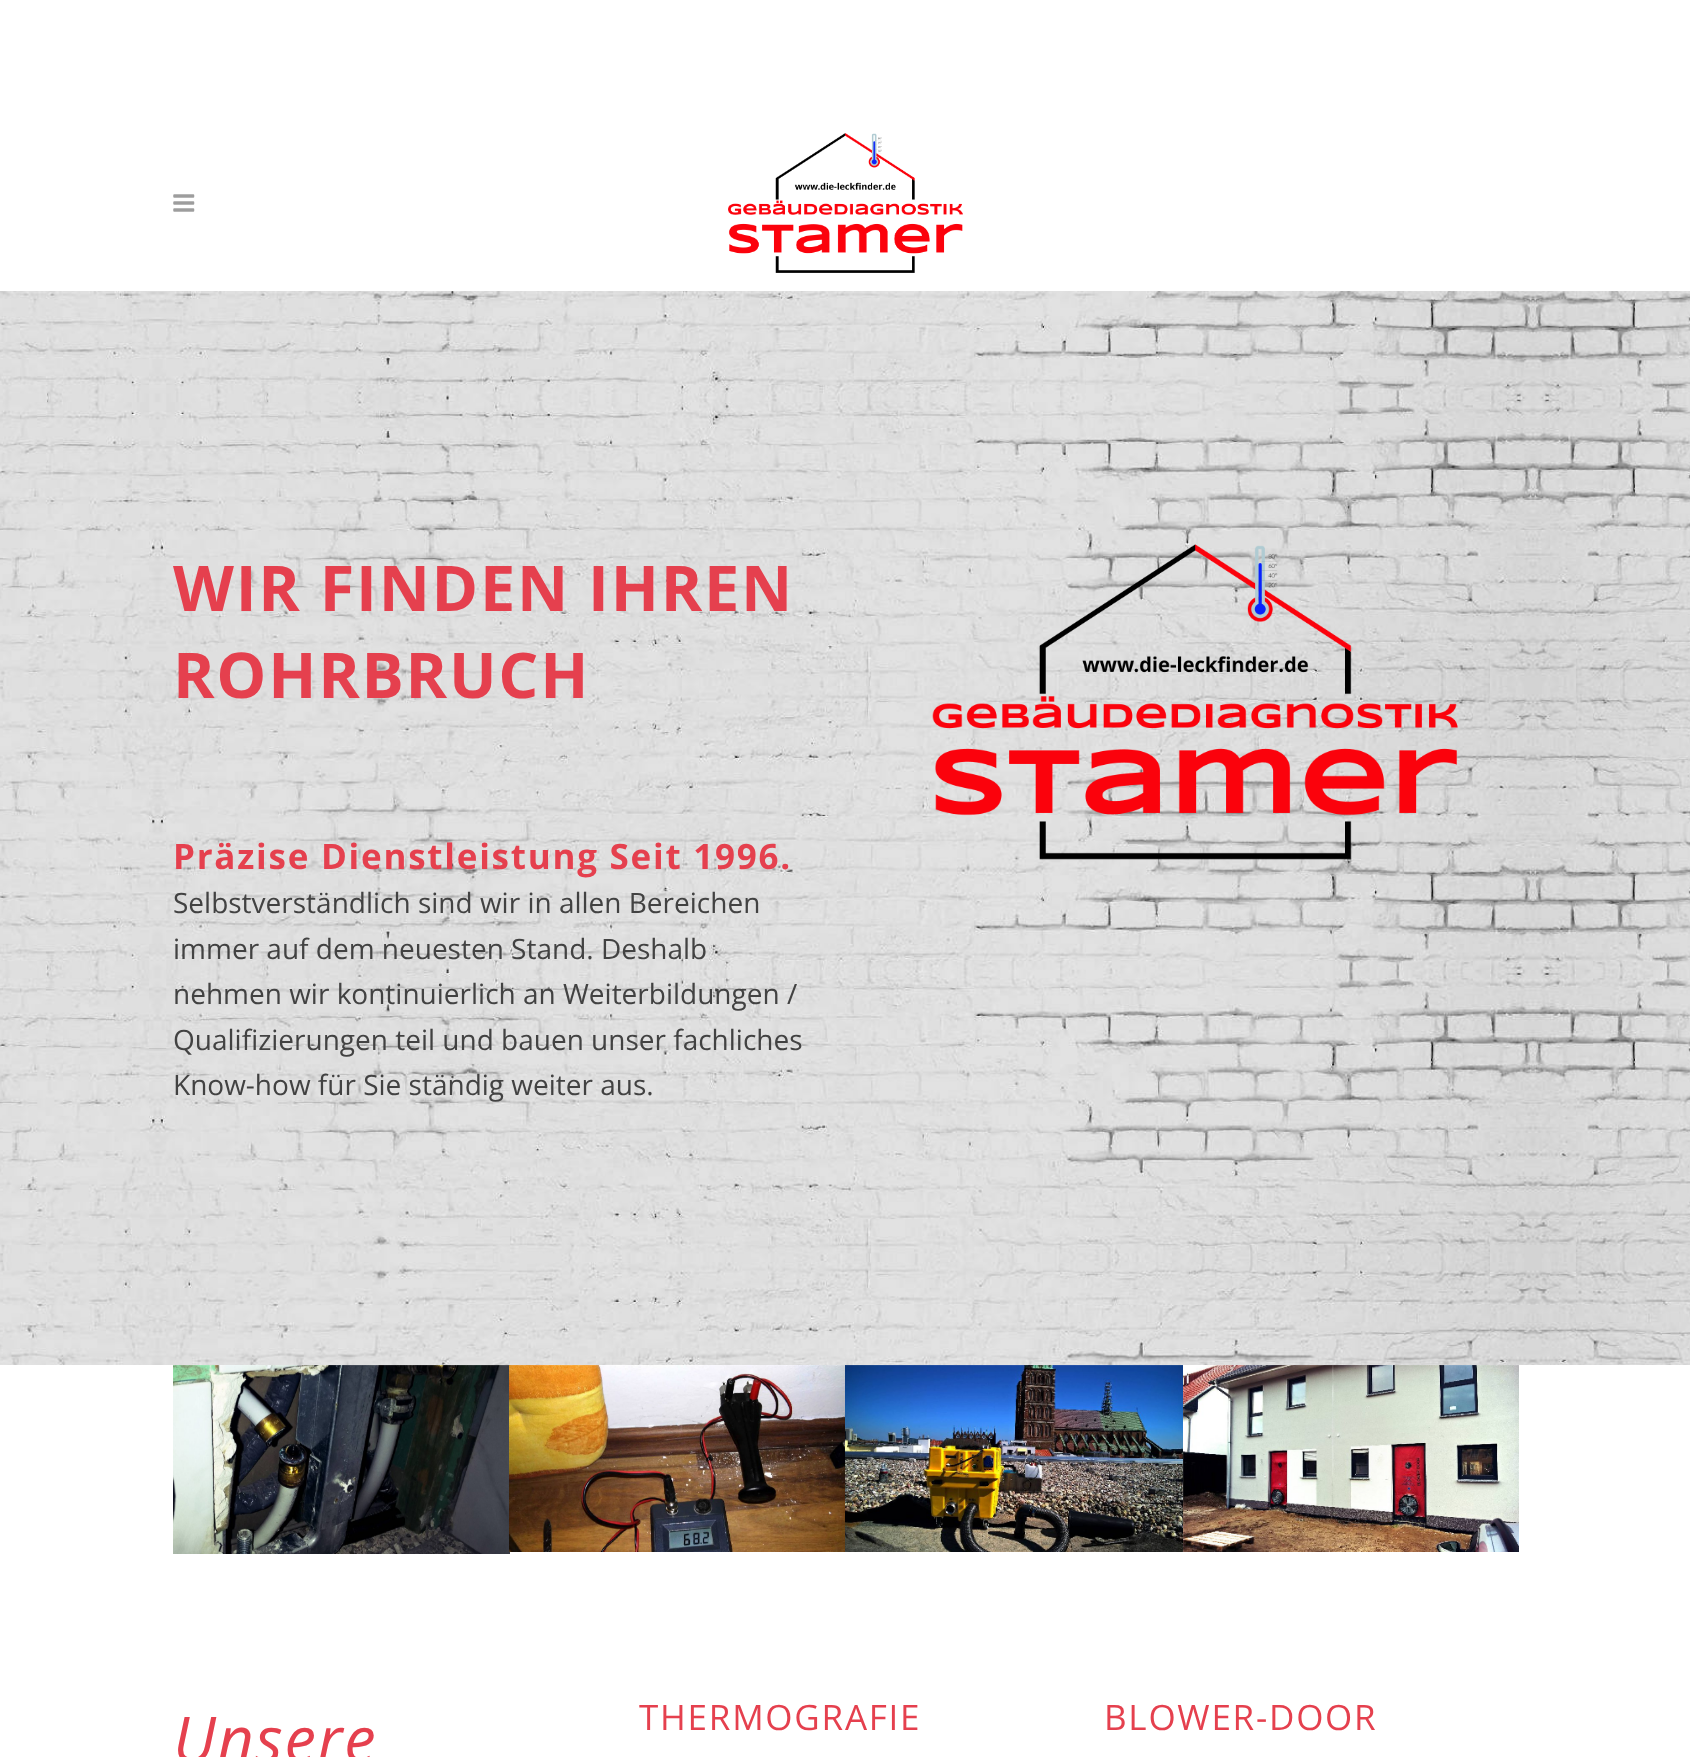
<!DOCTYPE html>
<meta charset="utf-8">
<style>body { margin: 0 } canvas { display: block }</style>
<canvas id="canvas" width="1690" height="1757"></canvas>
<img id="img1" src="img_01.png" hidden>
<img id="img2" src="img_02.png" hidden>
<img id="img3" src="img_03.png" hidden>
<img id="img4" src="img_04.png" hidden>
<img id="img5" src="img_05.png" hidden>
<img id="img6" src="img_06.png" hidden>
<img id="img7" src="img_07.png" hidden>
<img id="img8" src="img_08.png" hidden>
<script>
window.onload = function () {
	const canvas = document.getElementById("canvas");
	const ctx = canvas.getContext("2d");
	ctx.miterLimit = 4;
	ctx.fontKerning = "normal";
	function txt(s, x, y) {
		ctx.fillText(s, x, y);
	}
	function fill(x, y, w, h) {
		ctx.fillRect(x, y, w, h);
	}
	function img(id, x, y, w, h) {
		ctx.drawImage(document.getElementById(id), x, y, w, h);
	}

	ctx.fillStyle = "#FFFFFF";
	fill(0, 0, 1690, 1757);
	img("img1", 173, 194, 22, 18);
	img("img2", 728, 133, 235, 140);
	img("img3", 0, 291, 1690, 1074);
	img("img4", 932, 544, 526, 316);
	img("img5", 173, 1365, 337, 189);
	img("img6", 509, 1365, 337, 187);
	img("img7", 845, 1365, 338, 187);
	img("img8", 1183, 1365, 336, 187);
	ctx.letterSpacing = "1.75px";
	ctx.font = "bold 63px Open Sans";
	ctx.fillStyle = "#E5404E";
	txt("WIR FINDEN IHREN", 173, 611);
	txt("ROHRBRUCH", 173, 698);
	ctx.font = "bold 35px Open Sans";
	txt("Präzise Dienstleistung Seit 1996.", 173, 869);
	ctx.letterSpacing = "0px";
	ctx.font = "28px Open Sans";
	ctx.fillStyle = "#424242";
	txt("Selbstverständlich sind wir in allen Bereichen", 173, 913);
	txt("immer auf dem neuesten Stand. Deshalb", 173, 959);
	txt("nehmen wir kontinuierlich an Weiterbildungen /", 173, 1004);
	txt("Qualifizierungen teil und bauen unser fachliches", 173, 1050);
	txt("Know-how für Sie ständig weiter aus.", 173, 1095);
	ctx.letterSpacing = "1.75px";
	ctx.font = "italic 63px Open Sans";
	ctx.fillStyle = "#E5404E";
	txt("Unsere", 173, 1762);
	ctx.font = "35px Open Sans";
	txt("THERMOGRAFIE", 639, 1730);
	txt("BLOWER-DOOR", 1104, 1730);
};
</script>
